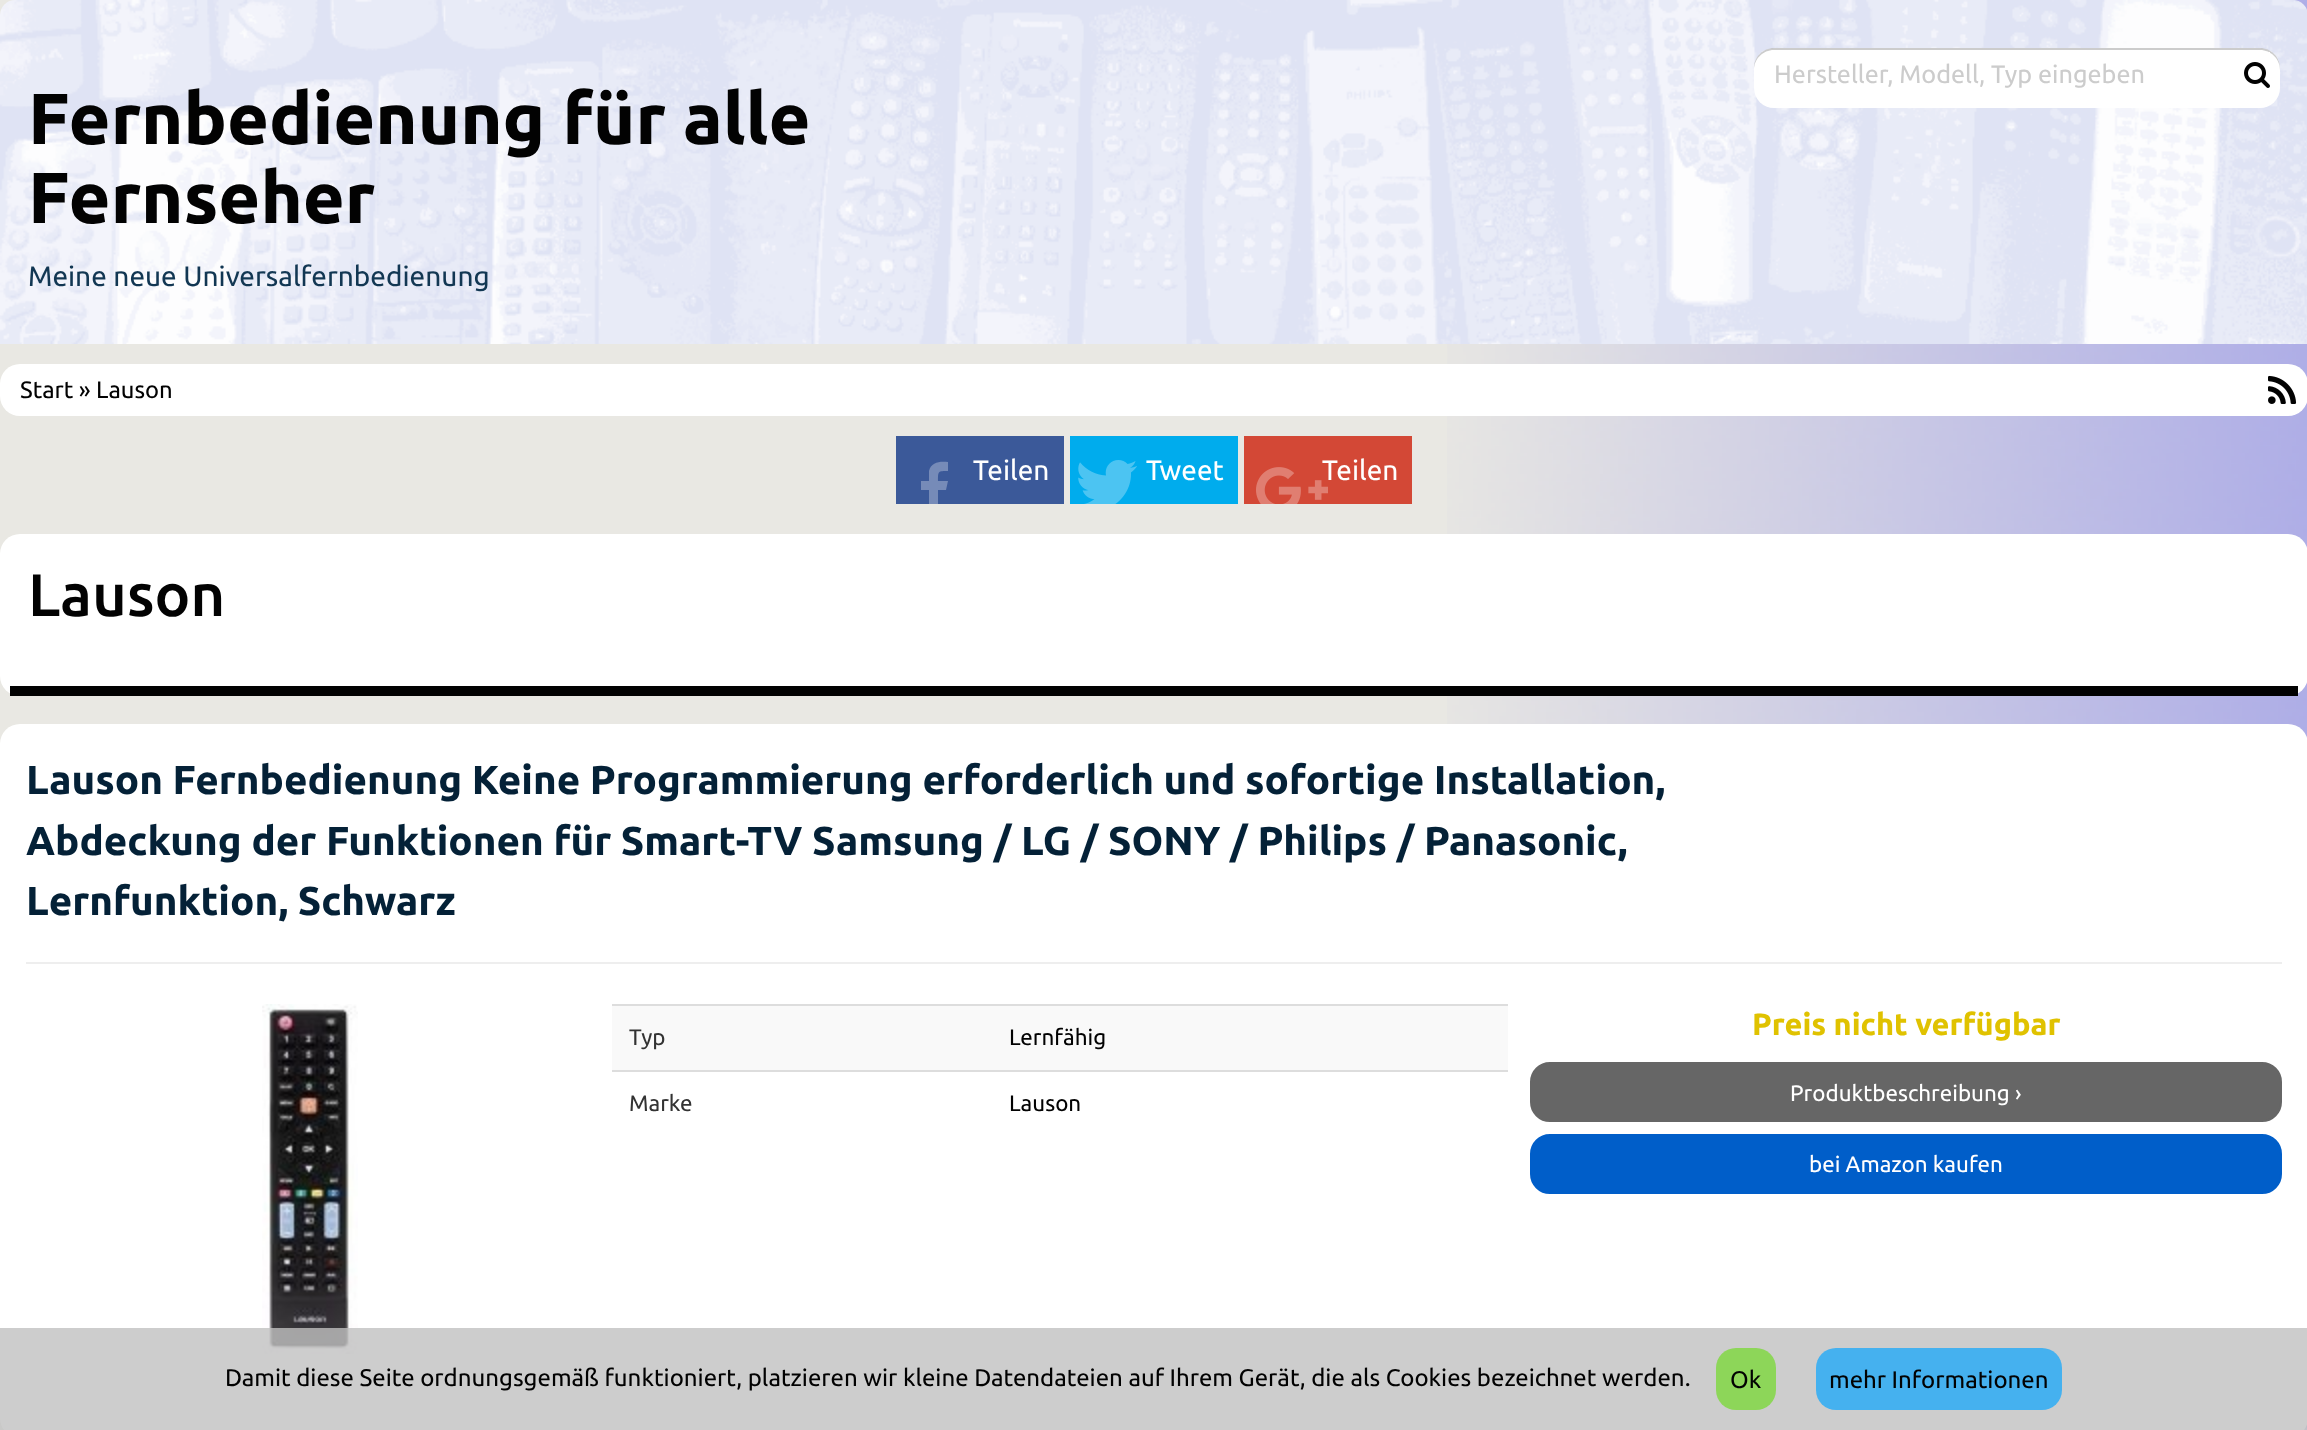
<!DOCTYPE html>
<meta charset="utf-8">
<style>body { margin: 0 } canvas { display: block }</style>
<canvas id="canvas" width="2307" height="1430"></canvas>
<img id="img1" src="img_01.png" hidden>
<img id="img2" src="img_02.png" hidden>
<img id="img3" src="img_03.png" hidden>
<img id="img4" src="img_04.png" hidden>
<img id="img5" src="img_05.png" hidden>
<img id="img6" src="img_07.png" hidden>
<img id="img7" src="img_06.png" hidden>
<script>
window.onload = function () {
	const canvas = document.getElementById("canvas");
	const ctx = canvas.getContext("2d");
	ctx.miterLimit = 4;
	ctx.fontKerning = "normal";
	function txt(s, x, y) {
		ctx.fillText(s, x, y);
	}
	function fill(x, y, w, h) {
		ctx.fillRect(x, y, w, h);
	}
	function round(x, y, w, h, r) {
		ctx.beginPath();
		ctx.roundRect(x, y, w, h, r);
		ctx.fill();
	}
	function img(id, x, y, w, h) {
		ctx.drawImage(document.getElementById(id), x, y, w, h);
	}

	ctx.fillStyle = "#E9E8E3";
	fill(0, 0, 2307, 1430);
	img("img1", 1447, 0, 860, 1430);
	img("img2", 0, 0, 2307, 344);
	ctx.fillStyle = "#FFFFFF";
	round(1754, 48, 526, 60, 20);
	ctx.fillStyle = "rgba(0, 0, 0, 0.2)";
	ctx.beginPath();
	ctx.moveTo(1774, 50);
	ctx.lineTo(2260, 50);
	ctx.bezierCurveTo(2271, 50, 2280, 59, 2280, 70);
	ctx.lineTo(2280, 68);
	ctx.bezierCurveTo(2280, 57, 2271, 48, 2260, 48);
	ctx.lineTo(1774, 48);
	ctx.bezierCurveTo(1763, 48, 1754, 57, 1754, 68);
	ctx.lineTo(1754, 70);
	ctx.bezierCurveTo(1754, 59, 1763, 50, 1774, 50);
	ctx.closePath();
	ctx.fill();
	ctx.fillStyle = "#FFFFFF";
	fill(2269, 52, 1, 1);
	img("img3", 2244, 62, 26, 26);
	round(0, 364, 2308, 52, 20);
	img("img4", 2268, 375, 29, 29);
	ctx.fillStyle = "#3B5999";
	fill(896, 436, 168, 68);
	ctx.save();
	ctx.beginPath();
	ctx.rect(896, 436, 168, 68);
	ctx.clip();
	ctx.fillStyle = "#768BB8";
	ctx.beginPath();
	ctx.moveTo(948, 462);
	ctx.lineTo(948, 471);
	ctx.bezierCurveTo(938, 471, 938, 471, 938, 481);
	ctx.lineTo(948, 481);
	ctx.lineTo(946, 490);
	ctx.lineTo(938, 490);
	ctx.lineTo(938, 514);
	ctx.lineTo(929, 514);
	ctx.lineTo(929, 490);
	ctx.lineTo(921, 490);
	ctx.lineTo(921, 481);
	ctx.lineTo(929, 481);
	ctx.lineTo(929, 471);
	ctx.bezierCurveTo(931, 462, 940, 461, 948, 462);
	ctx.closePath();
	ctx.fill();
	ctx.restore();
	ctx.fillStyle = "#00ACED";
	fill(1070, 436, 168, 68);
	img("img5", 1078, 460, 59, 44);
	ctx.fillStyle = "#D34836";
	fill(1244, 436, 168, 68);
	ctx.fillStyle = "#FFFFFF";
	round(0, 534, 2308, 162, 20);
	ctx.fillStyle = "#020202";
	fill(10, 686, 2288, 10);
	ctx.fillStyle = "#FFFFFF";
	round(0, 724, 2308, 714, 20);
	ctx.fillStyle = "#EEEEEE";
	fill(26, 962, 2256, 2);
	img("img6", 262, 1004, 96, 350);
	ctx.fillStyle = "#F9F9F9";
	fill(612, 1006, 896, 64);
	ctx.fillStyle = "#DDDDDD";
	fill(612, 1004, 896, 2);
	fill(612, 1070, 896, 2);
	ctx.fillStyle = "#666666";
	ctx.beginPath();
	ctx.roundRect(1531, 1063, 750, 58, 19);
	ctx.fill();
	ctx.strokeStyle = "#666666";
	ctx.lineWidth = 2;
	ctx.stroke();
	ctx.fillStyle = "#005EC9";
	ctx.beginPath();
	ctx.roundRect(1531, 1135, 750, 58, 19);
	ctx.fill();
	ctx.strokeStyle = "#005EC9";
	ctx.stroke();
	ctx.fillStyle = "rgba(193, 193, 193, 0.8)";
	fill(0, 1328, 2307, 102);
	ctx.fillStyle = "#8DD659";
	round(1716, 1348, 60, 62, 20);
	ctx.fillStyle = "#45B1EF";
	round(1816, 1348, 246, 62, 20);
	ctx.font = "25.25px Ubuntu";
	ctx.fillStyle = "#CCCCCC";
	txt("Hersteller, Modell, Typ eingeben", 1774, 83);
	ctx.font = "bold 72px Ubuntu";
	ctx.fillStyle = "#020202";
	txt("Fernbedienung für alle", 28, 144);
	txt("Fernseher", 28, 223);
	ctx.font = "28px Ubuntu";
	ctx.fillStyle = "#123753";
	txt("Meine neue Universalfernbedienung", 28, 286);
	ctx.font = "23.75px Ubuntu";
	ctx.fillStyle = "#020202";
	txt("Start » Lauson", 20, 398);
	ctx.font = "28px Ubuntu";
	ctx.fillStyle = "#FFFFFF";
	txt("Teilen", 973, 480);
	txt("Tweet", 1146, 480);
	txt("Teilen", 1322, 480);
	img("img7", 1256, 467, 72, 37);
	ctx.font = "500 60px Ubuntu";
	ctx.fillStyle = "#020202";
	txt("Lauson", 28, 616);
	ctx.font = "bold 40.3px Ubuntu";
	ctx.fillStyle = "#042137";
	txt("Lauson Fernbedienung Keine Programmierung erforderlich und sofortige Installation,", 26, 794);
	txt("Abdeckung der Funktionen für Smart-TV Samsung / LG / SONY / Philips / Panasonic,", 26, 855);
	txt("Lernfunktion, Schwarz", 26, 915);
	ctx.font = "22.4px Ubuntu";
	ctx.fillStyle = "#333333";
	txt("Typ", 629, 1045);
	ctx.fillStyle = "#020202";
	txt("Lernfähig", 1009, 1045);
	ctx.fillStyle = "#333333";
	txt("Marke", 629, 1111);
	ctx.fillStyle = "#020202";
	txt("Lauson", 1009, 1111);
	ctx.font = "bold 30.75px Ubuntu";
	ctx.fillStyle = "#E0C200";
	txt("Preis nicht verfügbar", 1752, 1035);
	ctx.font = "22.4px Ubuntu";
	ctx.fillStyle = "#FFFFFF";
	txt("Produktbeschreibung ›", 1790, 1101);
	txt("bei Amazon kaufen", 1809, 1172);
	ctx.font = "24px Ubuntu";
	ctx.fillStyle = "#020202";
	txt("Damit diese Seite ordnungsgemäß funktioniert, platzieren wir kleine Datendateien auf Ihrem Gerät, die als Cookies bezeichnet werden.", 225, 1386);
	txt("Ok", 1730, 1388);
	txt("mehr Informationen", 1829, 1388);
};
</script>
